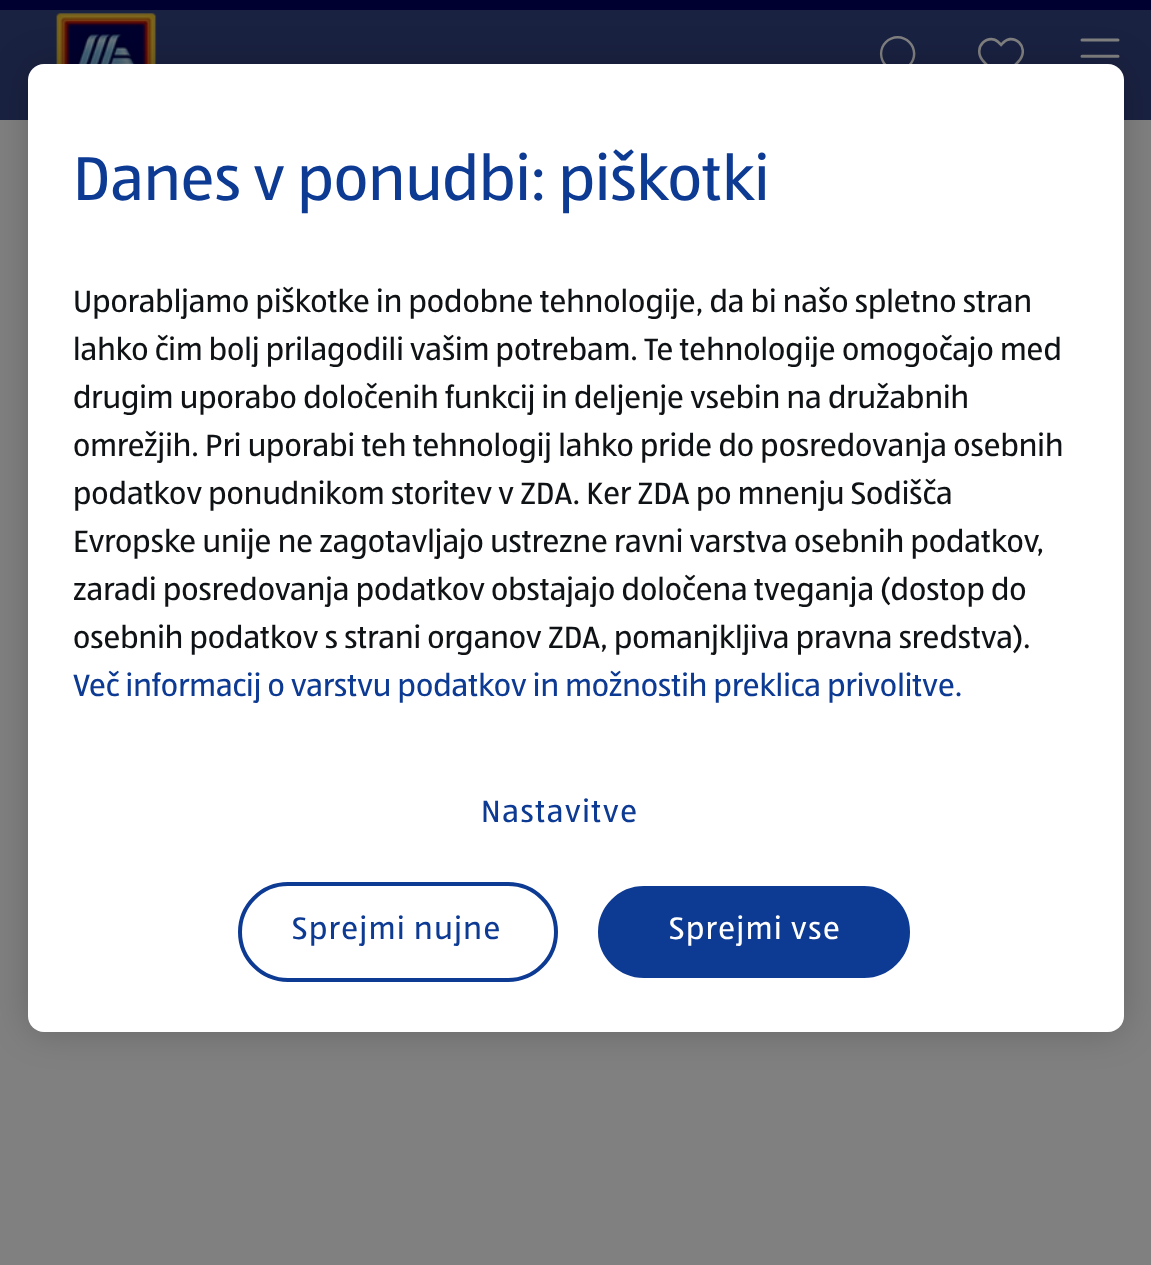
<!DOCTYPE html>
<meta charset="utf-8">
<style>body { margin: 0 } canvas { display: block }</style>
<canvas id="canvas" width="1151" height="1265"></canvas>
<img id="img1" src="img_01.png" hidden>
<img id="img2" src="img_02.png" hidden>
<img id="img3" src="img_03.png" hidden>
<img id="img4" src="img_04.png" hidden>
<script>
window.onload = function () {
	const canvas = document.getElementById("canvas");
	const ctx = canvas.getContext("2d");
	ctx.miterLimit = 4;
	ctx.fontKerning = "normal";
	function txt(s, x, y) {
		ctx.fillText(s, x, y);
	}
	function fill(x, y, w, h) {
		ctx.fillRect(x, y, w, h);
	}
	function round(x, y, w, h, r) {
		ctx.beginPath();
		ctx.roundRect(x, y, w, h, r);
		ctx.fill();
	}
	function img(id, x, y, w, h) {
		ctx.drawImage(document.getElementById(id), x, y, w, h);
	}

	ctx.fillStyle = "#808080";
	fill(0, 0, 1151, 1265);
	ctx.fillStyle = "#1A2242";
	fill(0, 10, 1151, 110);
	ctx.fillStyle = "#000030";
	fill(0, 0, 1151, 10);
	img("img1", 56, 13, 101, 51);
	img("img2", 879, 36, 37, 28);
	img("img3", 978, 37, 46, 27);
	img("img4", 1080, 38, 40, 20);
	ctx.fillStyle = "rgba(0, 0, 0, 0.2)";
	ctx.filter = "blur(18px)";
	ctx.beginPath();
	ctx.roundRect(28, 64, 1096, 968, 16);
	ctx.fill();
	ctx.filter = "none";
	ctx.fillStyle = "#FFFFFF";
	round(28, 64, 1096, 968, 16);
	ctx.beginPath();
	ctx.roundRect(240, 884, 316, 96, 48);
	ctx.strokeStyle = "#0D3A93";
	ctx.lineWidth = 4;
	ctx.stroke();
	ctx.fillStyle = "#0D3A93";
	ctx.beginPath();
	ctx.roundRect(596, 884, 316, 96, 48);
	ctx.fill();
	ctx.strokeStyle = "#FFFFFF";
	ctx.stroke();
	ctx.font = "64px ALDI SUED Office";
	txt("Danes v ponudbi: piškotki", 73, 200);
	ctx.font = "32px ALDI SUED Office";
	ctx.fillStyle = "#101316";
	txt("Uporabljamo piškotke in podobne tehnologije, da bi našo spletno stran", 73, 312);
	txt("lahko čim bolj prilagodili vašim potrebam. Te tehnologije omogočajo med", 73, 360);
	txt("drugim uporabo določenih funkcij in deljenje vsebin na družabnih", 73, 408);
	txt("omrežjih. Pri uporabi teh tehnologij lahko pride do posredovanja osebnih", 73, 456);
	txt("podatkov ponudnikom storitev v ZDA. Ker ZDA po mnenju Sodišča", 73, 504);
	txt("Evropske unije ne zagotavljajo ustrezne ravni varstva osebnih podatkov,", 73, 552);
	txt("zaradi posredovanja podatkov obstajajo določena tveganja (dostop do", 73, 600);
	txt("osebnih podatkov s strani organov ZDA, pomanjkljiva pravna sredstva).", 73, 648);
	ctx.fillStyle = "#0D3A93";
	txt("Več informacij o varstvu podatkov in možnostih preklica privolitve.", 73, 696);
	ctx.letterSpacing = "1.6px";
	txt("Nastavitve", 481, 822);
	txt("Sprejmi nujne", 292, 939);
	ctx.fillStyle = "#FFFFFF";
	txt("Sprejmi vse", 669, 939);
};
</script>
